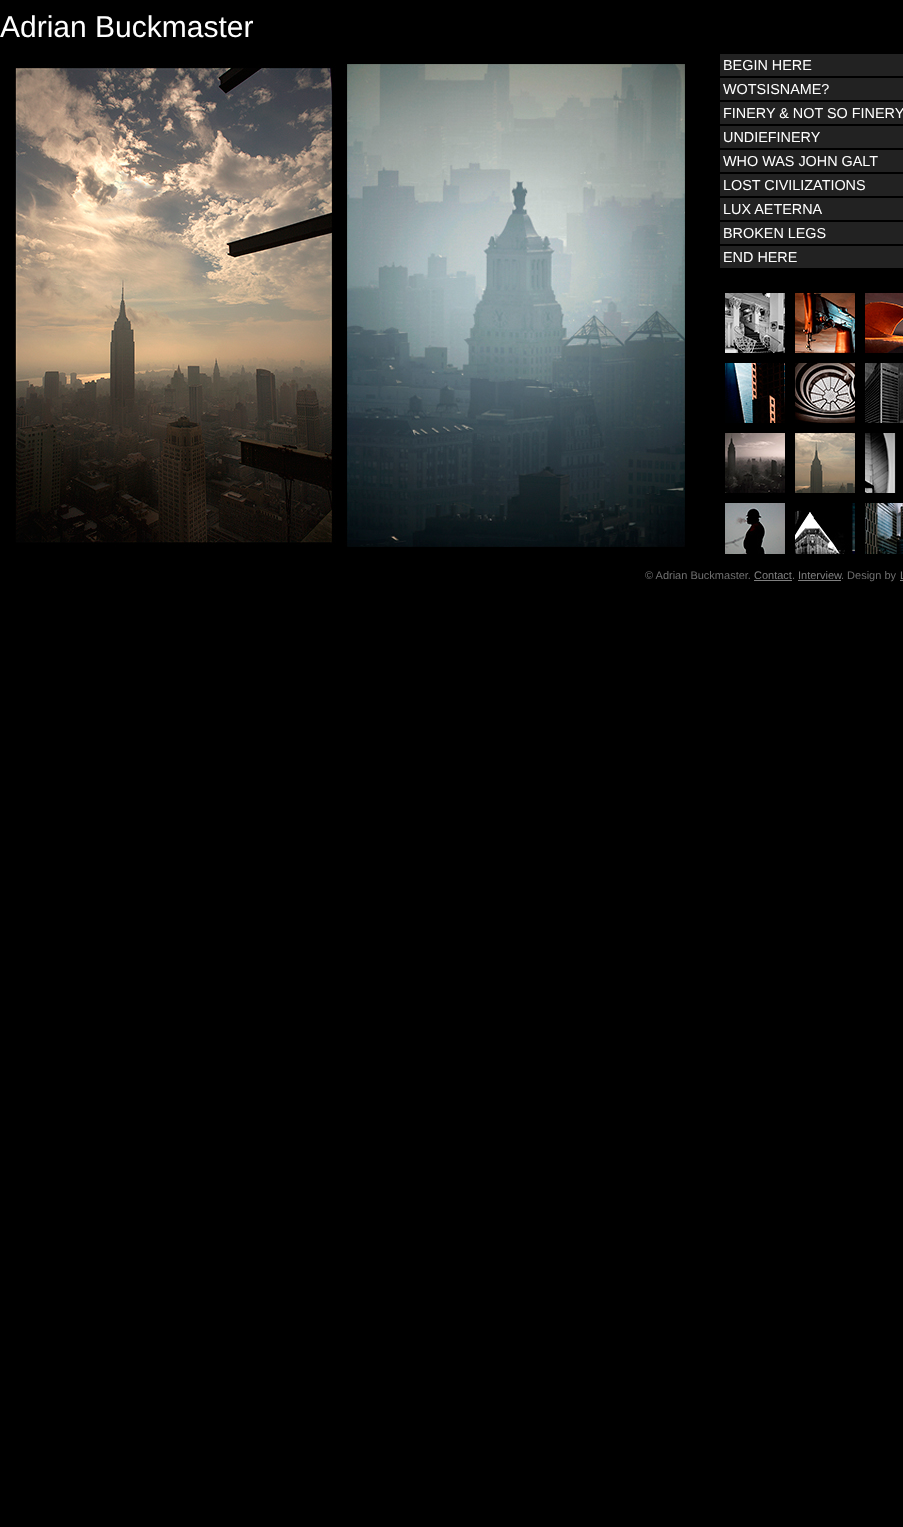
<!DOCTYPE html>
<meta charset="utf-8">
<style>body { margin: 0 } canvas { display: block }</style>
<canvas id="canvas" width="903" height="1527"></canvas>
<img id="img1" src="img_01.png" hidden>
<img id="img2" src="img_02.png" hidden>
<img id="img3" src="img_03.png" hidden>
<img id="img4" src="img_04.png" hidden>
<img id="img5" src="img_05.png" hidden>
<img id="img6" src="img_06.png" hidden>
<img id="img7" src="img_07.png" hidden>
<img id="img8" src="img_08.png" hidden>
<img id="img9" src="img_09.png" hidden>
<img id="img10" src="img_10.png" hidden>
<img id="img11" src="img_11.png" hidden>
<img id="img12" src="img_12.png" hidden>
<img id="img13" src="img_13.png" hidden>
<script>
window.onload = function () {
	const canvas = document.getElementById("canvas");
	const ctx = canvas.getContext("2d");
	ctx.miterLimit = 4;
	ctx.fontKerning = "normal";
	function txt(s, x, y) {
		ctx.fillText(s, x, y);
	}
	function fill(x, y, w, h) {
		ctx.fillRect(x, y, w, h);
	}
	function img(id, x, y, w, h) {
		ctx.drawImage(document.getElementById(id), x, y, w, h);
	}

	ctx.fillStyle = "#000000";
	fill(0, 0, 903, 1527);
	img("img1", 15, 64, 670, 483);
	ctx.fillStyle = "#222222";
	fill(720, 54, 183, 22);
	fill(720, 78, 183, 22);
	fill(720, 102, 183, 22);
	fill(720, 126, 183, 22);
	fill(720, 150, 183, 22);
	fill(720, 174, 183, 22);
	fill(720, 198, 183, 22);
	fill(720, 222, 183, 22);
	fill(720, 246, 183, 22);
	img("img2", 725, 293, 60, 60);
	img("img3", 795, 293, 60, 60);
	img("img4", 865, 293, 38, 60);
	img("img5", 725, 363, 60, 60);
	img("img6", 795, 363, 60, 60);
	img("img7", 865, 363, 38, 60);
	img("img8", 725, 433, 60, 60);
	img("img9", 795, 433, 60, 60);
	img("img10", 865, 433, 31, 60);
	img("img11", 725, 503, 60, 51);
	img("img12", 795, 503, 60, 51);
	img("img13", 865, 503, 38, 51);
	ctx.fillStyle = "#808080";
	fill(754, 580, 38, 1);
	fill(798, 580, 43, 1);
	fill(900, 580, 3, 1);
	ctx.font = "30px Liberation Sans";
	ctx.fillStyle = "#FFFFFF";
	txt("Adrian Buckmaster", 0, 37);
	ctx.font = "14.4px Liberation Sans";
	txt("BEGIN HERE", 723, 70);
	txt("WOTSISNAME?", 723, 94);
	txt("FINERY & NOT SO FINERY", 723, 118);
	txt("UNDIEFINERY", 723, 142);
	txt("WHO WAS JOHN GALT", 723, 166);
	txt("LOST CIVILIZATIONS", 723, 190);
	txt("LUX AETERNA", 723, 214);
	txt("BROKEN LEGS", 723, 238);
	txt("END HERE", 723, 262);
	ctx.font = "11px Liberation Sans";
	ctx.fillStyle = "#6F6F6F";
	txt("© Adrian Buckmaster.", 645, 579);
	ctx.fillStyle = "#808080";
	txt("Contact", 754, 579);
	ctx.fillStyle = "#6F6F6F";
	txt(".", 792, 579);
	ctx.fillStyle = "#808080";
	txt("Interview", 798, 579);
	ctx.fillStyle = "#6F6F6F";
	txt(". Design by", 841, 579);
	ctx.fillStyle = "#808080";
	txt("L", 900, 579);
};
</script>
